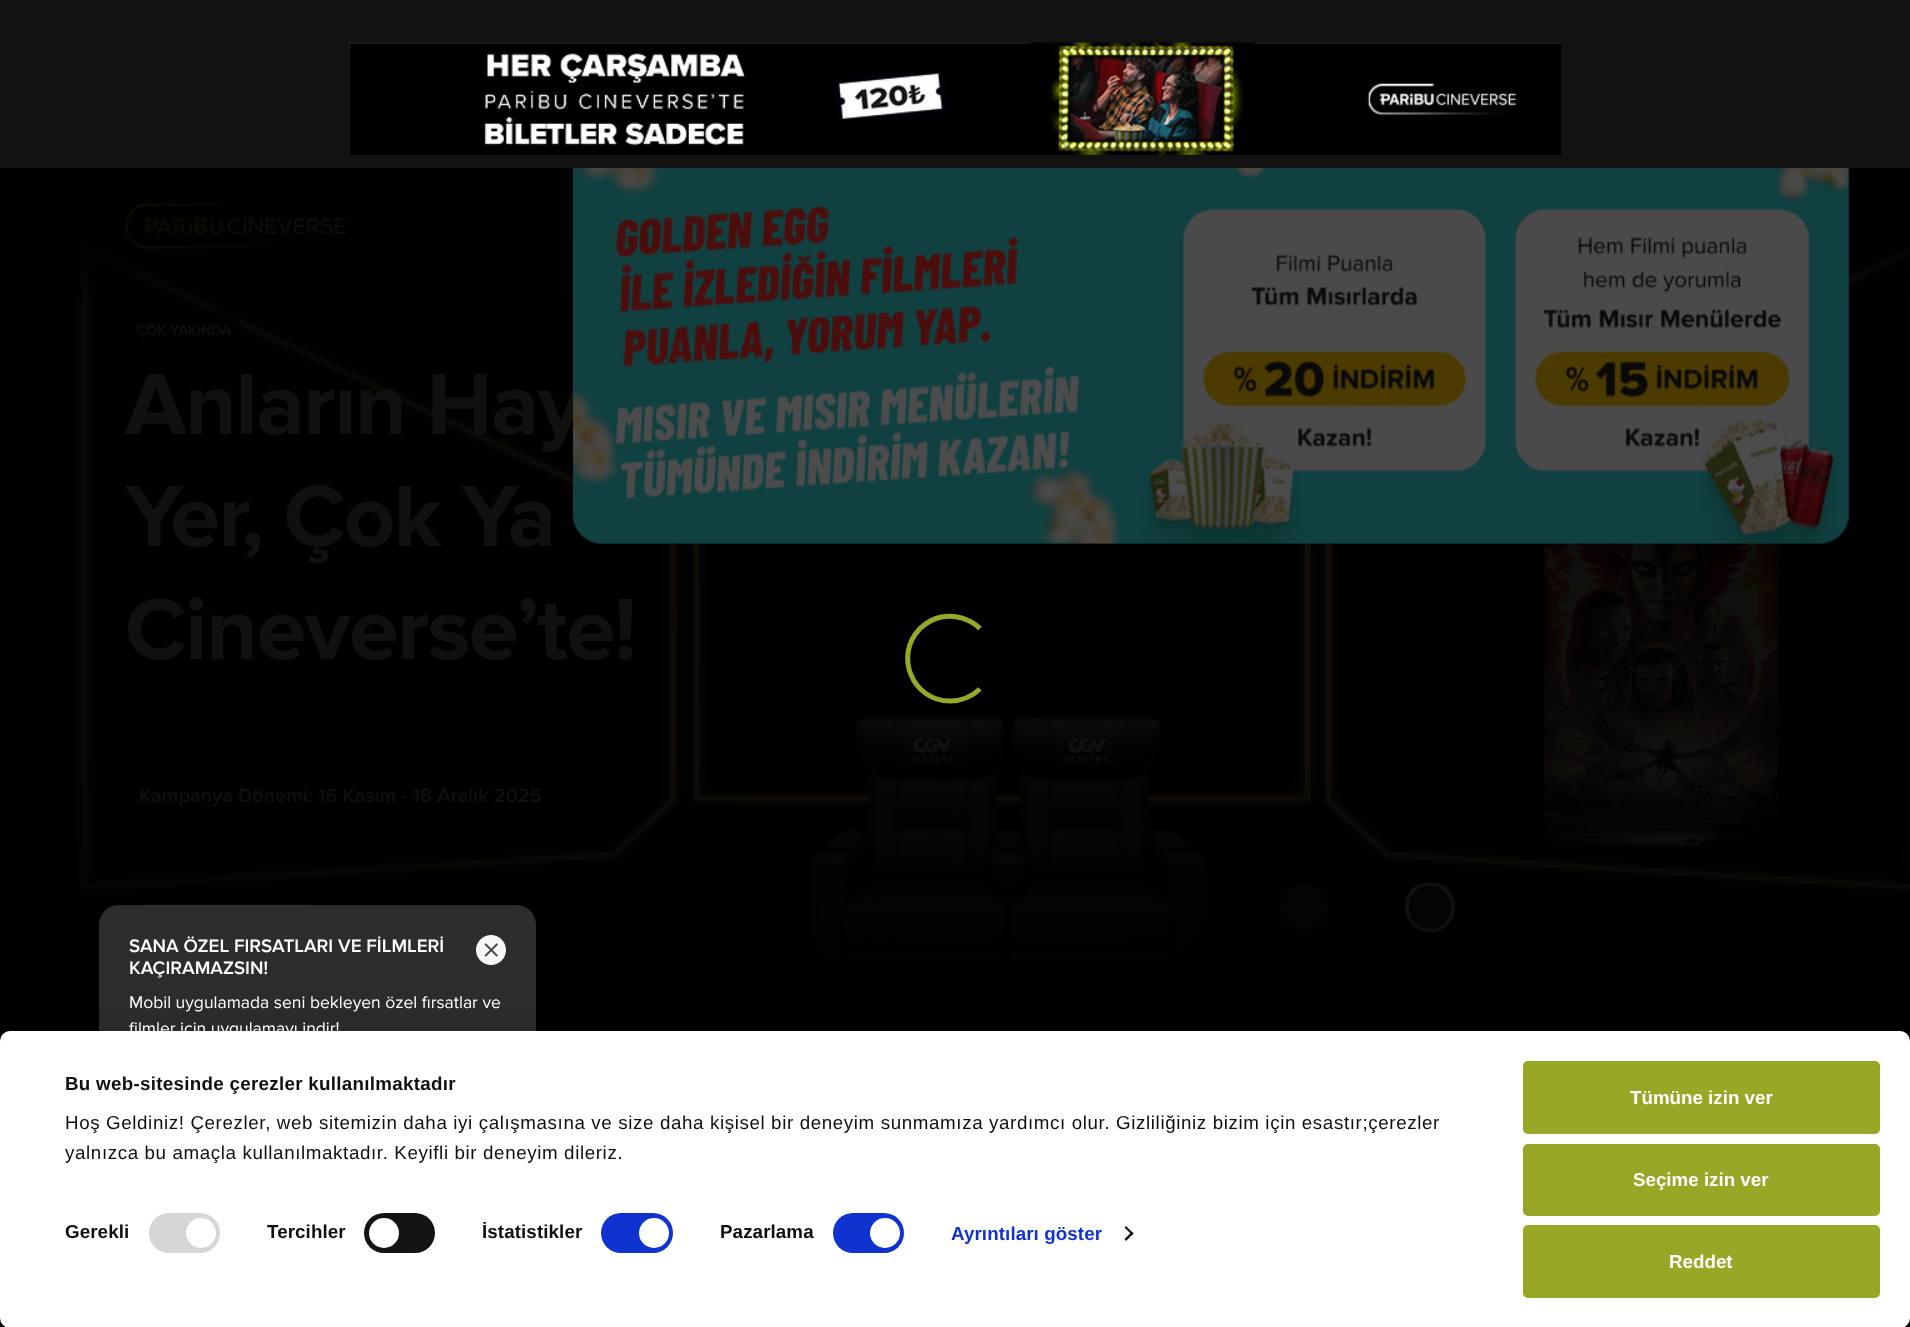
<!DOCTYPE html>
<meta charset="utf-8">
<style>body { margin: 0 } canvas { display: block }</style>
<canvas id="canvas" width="1910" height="1327"></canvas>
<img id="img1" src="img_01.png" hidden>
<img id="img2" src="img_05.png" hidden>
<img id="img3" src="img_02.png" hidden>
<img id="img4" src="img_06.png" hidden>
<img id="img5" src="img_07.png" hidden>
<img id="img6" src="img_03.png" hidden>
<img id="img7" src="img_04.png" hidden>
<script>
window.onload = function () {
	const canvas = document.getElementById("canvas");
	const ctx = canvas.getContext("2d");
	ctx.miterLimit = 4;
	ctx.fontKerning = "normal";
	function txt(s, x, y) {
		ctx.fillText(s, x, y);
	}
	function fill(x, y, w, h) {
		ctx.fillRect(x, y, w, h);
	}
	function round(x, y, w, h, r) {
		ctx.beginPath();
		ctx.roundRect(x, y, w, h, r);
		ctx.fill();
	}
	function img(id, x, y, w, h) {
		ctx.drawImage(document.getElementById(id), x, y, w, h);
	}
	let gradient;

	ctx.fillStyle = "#FFFFFF";
	fill(0, 0, 1910, 1327);
	gradient = ctx.createLinearGradient(955, 0, 955, 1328);
	gradient.addColorStop(0.15, "#010101");
	gradient.addColorStop(0.34, "#040404");
	gradient.addColorStop(0.56, "#010101");
	ctx.fillStyle = gradient;
	fill(0, 989, 1910, 338);
	ctx.fillStyle = "#121212";
	fill(0, 0, 1910, 168);
	img("img1", 348, 42, 1214, 113);
	img("img2", 0, 215, 1910, 774);
	gradient = ctx.createLinearGradient(955, 167, 955, 326);
	gradient.addColorStop(0.3, "#010101");
	gradient.addColorStop(1, "rgba(1, 1, 1, 0)");
	ctx.fillStyle = gradient;
	fill(0, 168, 1910, 140);
	img("img3", 125, 203, 225, 46);
	ctx.fillStyle = "rgba(0, 0, 0, 0.5)";
	round(125, 308, 116, 42, 21);
	ctx.fillStyle = "#0A0B02";
	round(125, 904, 205, 50, 25);
	img("img4", 1543, 543, 235, 304);
	ctx.fillStyle = "rgba(16, 16, 16, 0.23)";
	round(1280, 884, 48, 47, 23.5);
	ctx.beginPath();
	ctx.arc(1430, 908, 23, 0, Math.PI * 2);
	ctx.fill();
	ctx.strokeStyle = "#040404";
	ctx.lineWidth = 4;
	ctx.stroke();
	ctx.fillStyle = "#101010";
	ctx.beginPath();
	ctx.moveTo(1430, 932);
	ctx.lineTo(1430, 929);
	ctx.bezierCurveTo(1402, 929, 1402, 886, 1430, 886);
	ctx.lineTo(1430, 883);
	ctx.lineTo(1422, 883);
	ctx.bezierCurveTo(1397, 890, 1400, 932, 1430, 932);
	ctx.closePath();
	ctx.moveTo(1430, 932);
	ctx.bezierCurveTo(1460, 932, 1463, 890, 1438, 883);
	ctx.lineTo(1430, 883);
	ctx.lineTo(1430, 886);
	ctx.bezierCurveTo(1458, 886, 1458, 929, 1430, 929);
	ctx.closePath();
	ctx.fill();
	ctx.fillStyle = "#2D2D2D";
	round(99, 905, 437, 370, 20);
	img("img5", 476, 935, 30, 30);
	ctx.beginPath();
	ctx.moveTo(980, 689);
	ctx.bezierCurveTo(972, 696.5, 961, 701, 950, 701);
	ctx.bezierCurveTo(912.5, 701, 893.5, 655.5, 920, 628.5);
	ctx.bezierCurveTo(926, 623, 933.5, 618.5, 941.5, 617);
	ctx.bezierCurveTo(955.5, 614.5, 970, 618.5, 980, 628.5);
	ctx.strokeStyle = "#96A825";
	ctx.lineWidth = 5;
	ctx.stroke();
	ctx.fillStyle = "rgba(0, 0, 0, 0.3)";
	ctx.filter = "blur(44px)";
	ctx.beginPath();
	ctx.roundRect(0, 1069, 1910, 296, 10);
	ctx.fill();
	ctx.filter = "none";
	ctx.fillStyle = "#FFFFFF";
	round(0, 1031, 1910, 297, 10);
	ctx.fillStyle = "#D6D6D6";
	round(149, 1213, 71, 40, 20);
	ctx.fillStyle = "#FFFFFF";
	ctx.beginPath();
	ctx.arc(201, 1233, 15, 0, Math.PI * 2);
	ctx.fill();
	ctx.fillStyle = "#141414";
	round(364, 1213, 71, 40, 20);
	ctx.fillStyle = "#FFFFFF";
	ctx.beginPath();
	ctx.arc(384, 1233, 15, 0, Math.PI * 2);
	ctx.fill();
	ctx.fillStyle = "#1032CF";
	round(601, 1213, 72, 40, 20);
	ctx.fillStyle = "#FFFFFF";
	ctx.beginPath();
	ctx.arc(654, 1233, 15, 0, Math.PI * 2);
	ctx.fill();
	ctx.fillStyle = "#1032CF";
	round(833, 1213, 71, 40, 20);
	ctx.fillStyle = "#FFFFFF";
	ctx.beginPath();
	ctx.arc(885, 1233, 15, 0, Math.PI * 2);
	ctx.fill();
	ctx.fillStyle = "#141414";
	ctx.beginPath();
	ctx.moveTo(1126, 1226);
	ctx.lineTo(1133.5, 1233.5);
	ctx.lineTo(1132, 1235);
	ctx.lineTo(1124.5, 1227.5);
	ctx.closePath();
	ctx.fill();
	ctx.beginPath();
	ctx.moveTo(1132, 1231.5);
	ctx.lineTo(1133.5, 1233.5);
	ctx.lineTo(1126, 1241);
	ctx.lineTo(1124.5, 1239);
	ctx.closePath();
	ctx.fill();
	ctx.fillStyle = "#98A726";
	ctx.beginPath();
	ctx.roundRect(1524.5, 1062.5, 354, 70, 3.5);
	ctx.fill();
	ctx.strokeStyle = "#98A726";
	ctx.lineWidth = 3;
	ctx.stroke();
	ctx.beginPath();
	ctx.roundRect(1524.5, 1145.5, 354, 69, 3.5);
	ctx.fill();
	ctx.stroke();
	ctx.beginPath();
	ctx.roundRect(1524.5, 1226.5, 354, 70, 3.5);
	ctx.fill();
	ctx.stroke();
	ctx.letterSpacing = "-0.25px";
	ctx.font = "600 15px Proxima Nova";
	ctx.fillStyle = "#101010";
	txt("ÇOK YAKINDA", 136, 335);
	ctx.letterSpacing = "-1.75px";
	ctx.font = "bold 90px Proxima Nova";
	txt("Anların Hay", 125, 434);
	img("img6", 573, 168, 1277, 376);
	img("img7", 1218, 168, 48, 12);
	txt("Yer, Çok Ya", 125, 546);
	txt("Cineverse’te!", 125, 659);
	ctx.letterSpacing = "0px";
	ctx.font = "600 20px Proxima Nova";
	txt("Kampanya Dönemi: 16 Kasım - 18 Aralık 2025", 139, 802);
	ctx.font = "600 18.75px Proxima Nova";
	ctx.fillStyle = "#FFFFFF";
	txt("SANA ÖZEL FIRSATLARI VE FİLMLERİ", 129, 952);
	txt("KAÇIRAMAZSIN!", 129, 974);
	ctx.font = "17.5px Proxima Nova";
	txt("Mobil uygulamada seni bekleyen özel fırsatlar ve", 129, 1008);
	txt("filmler için uygulamayı indir!", 129, 1034);
	ctx.letterSpacing = "0.3px";
	ctx.font = "bold 18.75px Liberation Sans";
	ctx.fillStyle = "#101010";
	txt("Bu web-sitesinde çerezler kullanılmaktadır", 65, 1090);
	ctx.letterSpacing = "0.62px";
	ctx.font = "18.75px Liberation Sans";
	txt("Hoş Geldiniz! Çerezler, web sitemizin daha iyi çalışmasına ve size daha kişisel bir deneyim sunmamıza yardımcı olur. Gizliliğiniz bizim için esastır;çerezler", 65, 1129);
	txt("yalnızca bu amaçla kullanılmaktadır. Keyifli bir deneyim dileriz.", 65, 1159);
	ctx.letterSpacing = "0.1px";
	ctx.font = "bold 18.75px Liberation Sans";
	txt("Gerekli", 65, 1238);
	txt("Tercihler", 267, 1238);
	txt("İstatistikler", 482, 1238);
	txt("Pazarlama", 720, 1238);
	ctx.fillStyle = "#1032CF";
	txt("Ayrıntıları göster", 951, 1240);
	ctx.letterSpacing = "0px";
	ctx.fillStyle = "#FFFFFF";
	txt("Tümüne izin ver", 1630, 1104);
	txt("Seçime izin ver", 1633, 1186);
	txt("Reddet", 1669, 1268);
};
</script>
